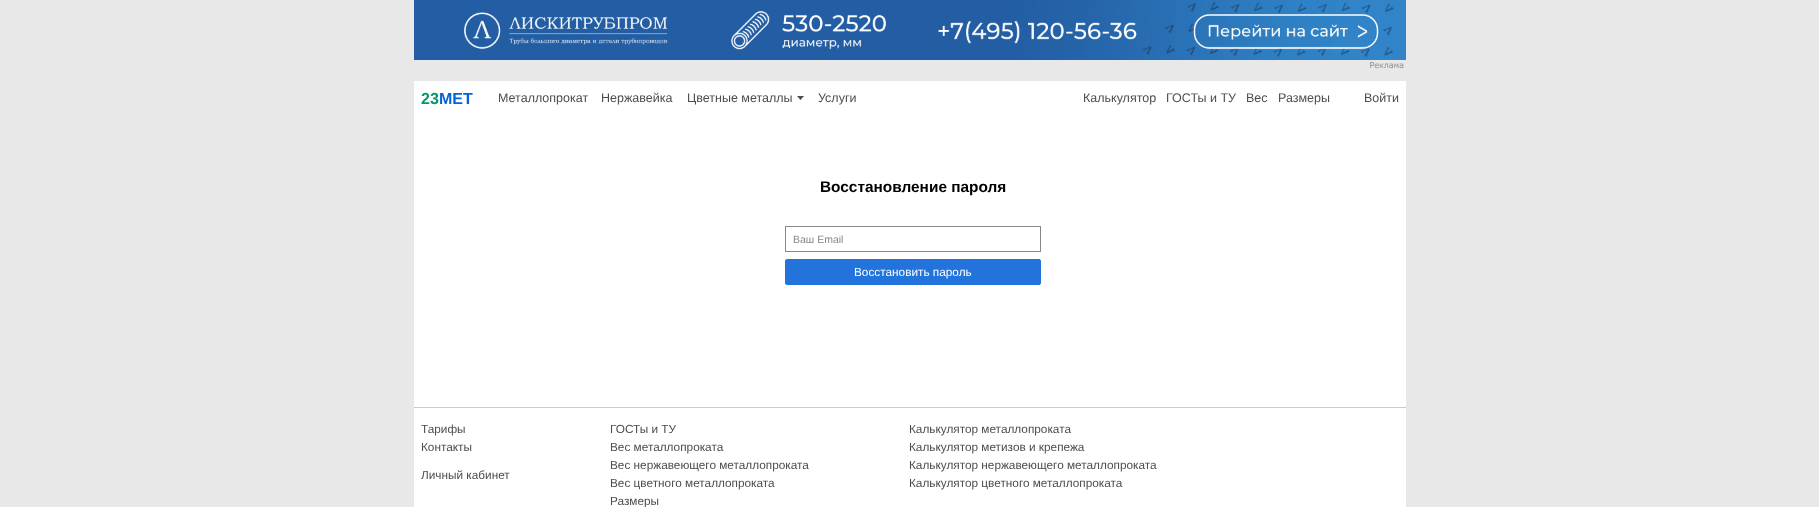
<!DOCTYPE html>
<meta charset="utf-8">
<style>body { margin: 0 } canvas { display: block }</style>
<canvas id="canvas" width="1819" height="507"></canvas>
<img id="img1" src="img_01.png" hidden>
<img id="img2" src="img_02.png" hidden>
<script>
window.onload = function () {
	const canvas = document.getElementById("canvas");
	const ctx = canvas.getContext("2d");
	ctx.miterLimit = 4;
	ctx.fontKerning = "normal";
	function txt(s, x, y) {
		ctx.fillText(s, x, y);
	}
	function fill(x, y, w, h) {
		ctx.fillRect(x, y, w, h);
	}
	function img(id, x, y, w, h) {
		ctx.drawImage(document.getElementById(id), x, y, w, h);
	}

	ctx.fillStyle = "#E8E8E8";
	fill(0, 0, 1819, 507);
	img("img1", 414, 0, 992, 60);
	img("img2", 1370, 62, 34, 7);
	ctx.fillStyle = "#FFFFFF";
	fill(414, 81, 992, 326);
	ctx.fillStyle = "#4D4D4D";
	ctx.beginPath();
	ctx.moveTo(797, 96);
	ctx.lineTo(804, 96);
	ctx.lineTo(800.5, 100);
	ctx.closePath();
	ctx.fill();
	ctx.strokeStyle = "#888888";
	ctx.strokeRect(785.5, 226.5, 255, 25);
	ctx.fillStyle = "#2274DC";
	ctx.beginPath();
	ctx.roundRect(785.5, 259.5, 255, 25, 1.5);
	ctx.fill();
	ctx.strokeStyle = "#2274DC";
	ctx.stroke();
	ctx.fillStyle = "#FFFFFF";
	fill(414, 408, 992, 99);
	ctx.fillStyle = "#CCCCCC";
	fill(414, 407, 992, 1);
	ctx.font = "bold 16px Liberation Sans";
	ctx.fillStyle = "#009966";
	txt("23", 421, 104);
	ctx.fillStyle = "#0063DC";
	txt("МЕТ", 439, 104);
	ctx.font = "12.5px Liberation Sans";
	ctx.fillStyle = "#4D4D4D";
	txt("Металлопрокат", 498, 102);
	txt("Нержавейка", 601, 102);
	txt("Цветные металлы", 687, 102);
	txt("Услуги", 818, 102);
	txt("Калькулятор", 1083, 102);
	txt("ГОСТы и ТУ", 1166, 102);
	txt("Вес", 1246, 102);
	txt("Размеры", 1278, 102);
	txt("Войти", 1364, 102);
	ctx.font = "bold 15.4px Liberation Sans";
	ctx.fillStyle = "#000000";
	txt("Восстановление пароля", 820, 192);
	ctx.font = "10.5px Liberation Sans";
	ctx.fillStyle = "#888888";
	txt("Ваш Email", 793, 243);
	ctx.font = "11.8px Liberation Sans";
	ctx.fillStyle = "#FFFFFF";
	txt("Восстановить пароль", 854, 276);
	ctx.fillStyle = "#4D4D4D";
	txt("Тарифы", 421, 433);
	txt("Контакты", 421, 451);
	txt("Личный кабинет", 421, 479);
	txt("ГОСТы и ТУ", 610, 433);
	txt("Вес металлопроката", 610, 451);
	txt("Вес нержавеющего металлопроката", 610, 469);
	txt("Вес цветного металлопроката", 610, 487);
	txt("Размеры", 610, 505);
	txt("Калькулятор металлопроката", 909, 433);
	txt("Калькулятор метизов и крепежа", 909, 451);
	txt("Калькулятор нержавеющего металлопроката", 909, 469);
	txt("Калькулятор цветного металлопроката", 909, 487);
};
</script>
